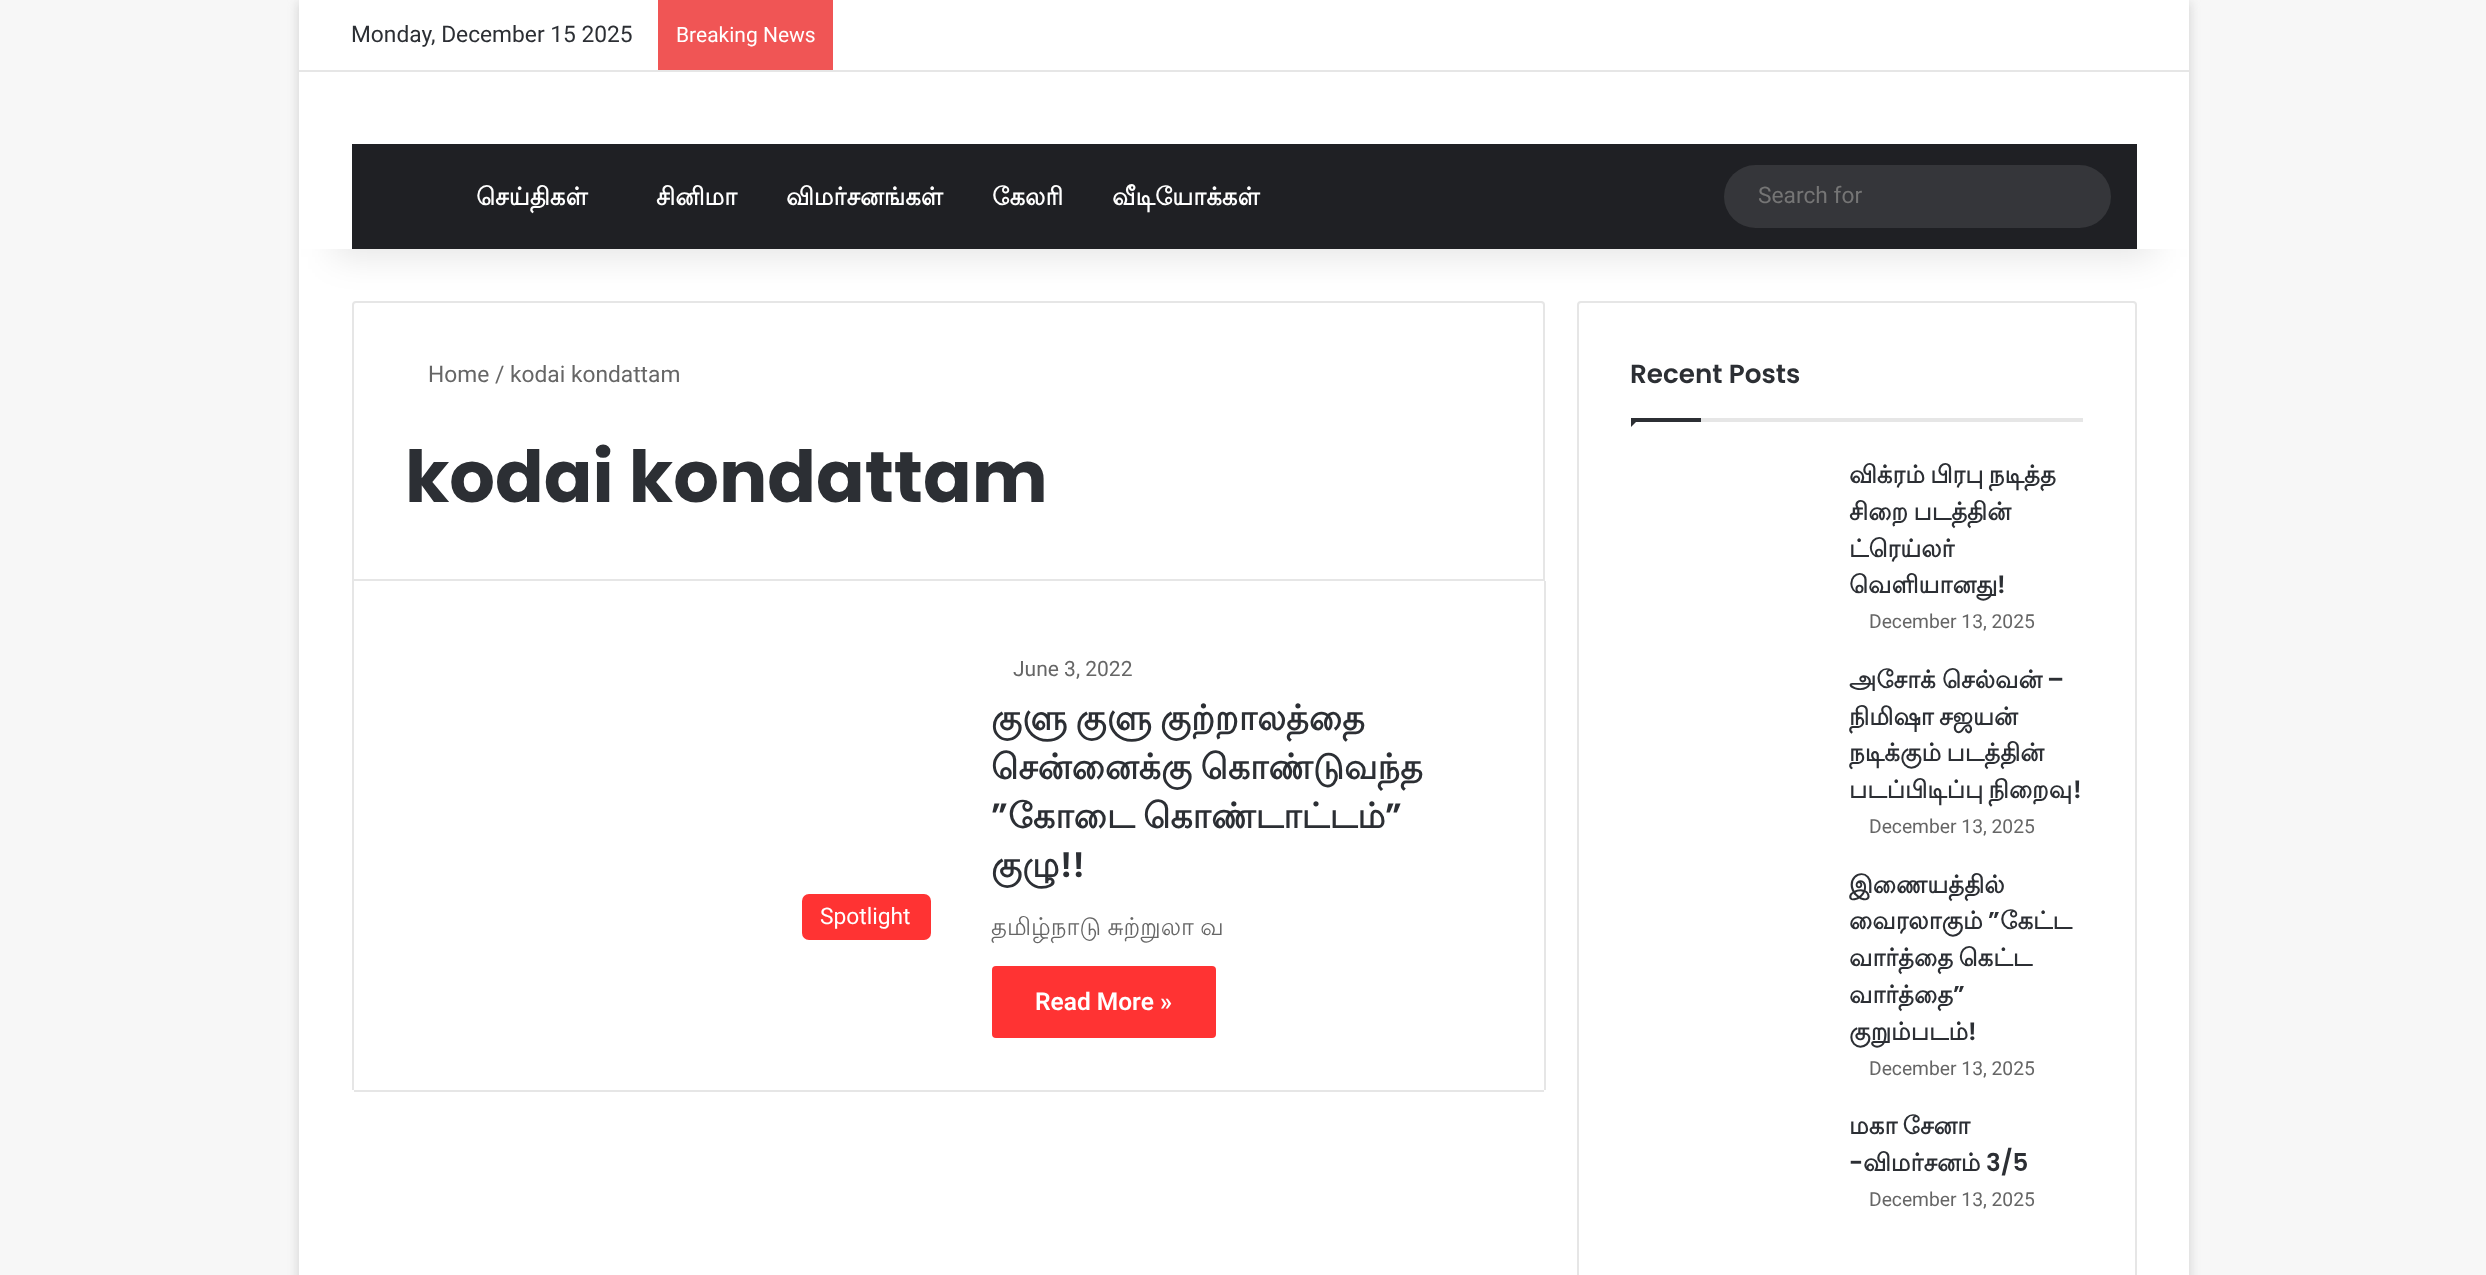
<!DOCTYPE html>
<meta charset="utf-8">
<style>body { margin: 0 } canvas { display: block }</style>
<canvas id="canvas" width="2486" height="1275"></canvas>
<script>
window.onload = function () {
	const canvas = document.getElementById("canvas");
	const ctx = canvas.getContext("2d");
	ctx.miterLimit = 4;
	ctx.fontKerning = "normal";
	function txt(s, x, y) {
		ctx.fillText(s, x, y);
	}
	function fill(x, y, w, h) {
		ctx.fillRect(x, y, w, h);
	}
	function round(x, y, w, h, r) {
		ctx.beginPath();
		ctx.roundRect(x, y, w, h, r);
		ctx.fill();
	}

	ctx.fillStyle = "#F7F7F7";
	fill(0, 0, 2486, 1275);
	ctx.fillStyle = "rgba(171, 171, 171, 0.5)";
	ctx.filter = "blur(6px)";
	ctx.beginPath();
	ctx.rect(299, 2, 1890, 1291);
	ctx.fill();
	ctx.filter = "none";
	ctx.fillStyle = "#FFFFFF";
	fill(299, 249, 1890, 1026);
	ctx.beginPath();
	ctx.roundRect(353, 302, 1191, 278, [3, 3, 0, 0]);
	ctx.strokeStyle = "#E6E6E6";
	ctx.lineWidth = 2;
	ctx.stroke();
	ctx.beginPath();
	ctx.roundRect(1578, 302, 558, 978, 3);
	ctx.stroke();
	ctx.fillStyle = "rgba(0, 0, 0, 0.1)";
	ctx.filter = "blur(17.5px)";
	ctx.beginPath();
	ctx.rect(334, 79, 1820, 178);
	ctx.fill();
	ctx.filter = "none";
	ctx.fillStyle = "#FFFFFF";
	fill(299, 0, 1890, 249);
	ctx.fillStyle = "#E6E6E6";
	fill(299, 70, 1890, 2);
	ctx.fillStyle = "#F05555";
	fill(658, 0, 175, 70);
	ctx.fillStyle = "#1F2024";
	fill(352, 144, 1785, 105);
	ctx.fillStyle = "#35363A";
	round(1724, 165, 387, 63, 31.5);
	ctx.fillStyle = "#E6E6E6";
	fill(1544, 581, 2, 509);
	fill(354, 1090, 1190, 2);
	fill(352, 581, 2, 509);
	ctx.fillStyle = "#FF3333";
	round(802, 894, 129, 46, 7);
	round(992, 966, 224, 72, 4);
	ctx.fillStyle = "#E6E6E6";
	fill(1701, 418, 382, 4);
	ctx.fillStyle = "#2C2F34";
	ctx.beginPath();
	ctx.moveTo(1631, 418);
	ctx.lineTo(1640, 418);
	ctx.lineTo(1631, 427);
	ctx.closePath();
	ctx.fill();
	fill(1631, 418, 70, 4);
	ctx.font = "22.75px Roboto";
	txt("Monday, December 15 2025", 351, 42);
	ctx.font = "21px Roboto";
	ctx.fillStyle = "#FFFFFF";
	txt("Breaking News", 676, 42);
	ctx.font = "bold 24.5px Lohit Tamil";
	txt("செய்திகள்", 476, 205);
	txt("சினிமா", 656, 205);
	txt("விமர்சனங்கள்", 786, 205);
	txt("கேலரி", 992, 205);
	txt("வீடியோக்கள்", 1112, 205);
	ctx.font = "22.75px Roboto";
	ctx.fillStyle = "#757575";
	txt("Search for", 1758, 203);
	ctx.fillStyle = "#666666";
	txt("Home", 428, 382);
	txt("/", 495, 382);
	txt("kodai kondattam", 510, 382);
	ctx.font = "bold 71.75px Poppins";
	ctx.fillStyle = "#2C2F34";
	txt("kodai kondattam", 405, 502);
	ctx.font = "22.75px Roboto";
	ctx.fillStyle = "#FFFFFF";
	txt("Spotlight", 820, 924);
	ctx.font = "21px Roboto";
	ctx.fillStyle = "#666666";
	txt("June 3, 2022", 1013, 676);
	ctx.wordSpacing = "-2px";
	ctx.font = "bold 35px Lohit Tamil";
	ctx.fillStyle = "#2C2F34";
	txt("குளு குளு குற்றாலத்தை", 991, 730);
	txt("சென்னைக்கு கொண்டுவந்த", 991, 779);
	ctx.wordSpacing = "0px";
	ctx.font = "600 35px Poppins";
	txt("”", 991, 828);
	ctx.wordSpacing = "-2px";
	ctx.font = "bold 35px Lohit Tamil";
	txt("கோடை கொண்டாட்டம்", 1008, 828);
	ctx.wordSpacing = "0px";
	ctx.font = "600 35px Poppins";
	txt("”", 1385, 828);
	ctx.font = "bold 35px Lohit Tamil";
	txt("குழு", 991, 877);
	ctx.font = "600 35px Poppins";
	txt("!!", 1060, 877);
	ctx.wordSpacing = "-1px";
	ctx.font = "24.5px Lohit Tamil";
	ctx.fillStyle = "#666666";
	txt("தமிழ்நாடு சுற்றுலா வ", 991, 935);
	ctx.wordSpacing = "0px";
	ctx.font = "600 24.5px Roboto";
	ctx.fillStyle = "#FFFFFF";
	txt("Read More »", 1035, 1010);
	ctx.font = "600 26.25px Poppins";
	ctx.fillStyle = "#2C2F34";
	txt("Recent Posts", 1630, 383);
	ctx.wordSpacing = "-2px";
	ctx.font = "bold 24.5px Lohit Tamil";
	txt("விக்ரம் பிரபு நடித்த", 1849, 483);
	txt("சிறை படத்தின்", 1849, 520);
	ctx.wordSpacing = "0px";
	txt("ட்ரெய்லர்", 1849, 557);
	txt("வெளியானது", 1849, 593);
	ctx.font = "600 24.5px Poppins";
	txt("!", 1997, 593);
	ctx.font = "19.25px Roboto";
	ctx.fillStyle = "#666666";
	txt("December 13, 2025", 1869, 628);
	ctx.wordSpacing = "-1px";
	ctx.font = "bold 24.5px Lohit Tamil";
	ctx.fillStyle = "#2C2F34";
	txt("அசோக் செல்வன்", 1849, 688);
	ctx.wordSpacing = "0px";
	ctx.font = "600 24.5px Poppins";
	txt("–", 2047, 688);
	ctx.wordSpacing = "-2px";
	ctx.font = "bold 24.5px Lohit Tamil";
	txt("நிமிஷா சஜயன்", 1849, 725);
	txt("நடிக்கும் படத்தின்", 1849, 761);
	txt("படப்பிடிப்பு நிறைவு", 1849, 798);
	ctx.wordSpacing = "0px";
	ctx.font = "600 24.5px Poppins";
	txt("!", 2073, 798);
	ctx.font = "19.25px Roboto";
	ctx.fillStyle = "#666666";
	txt("December 13, 2025", 1869, 833);
	ctx.font = "bold 24.5px Lohit Tamil";
	ctx.fillStyle = "#2C2F34";
	txt("இணையத்தில்", 1849, 893);
	txt("வைரலாகும்", 1849, 929);
	ctx.font = "600 24.5px Poppins";
	txt("”", 1988, 929);
	ctx.font = "bold 24.5px Lohit Tamil";
	txt("கேட்ட", 2000, 929);
	ctx.wordSpacing = "-2px";
	txt("வார்த்தை கெட்ட", 1849, 966);
	ctx.wordSpacing = "0px";
	txt("வார்த்தை", 1849, 1003);
	ctx.font = "600 24.5px Poppins";
	txt("”", 1953, 1003);
	ctx.font = "bold 24.5px Lohit Tamil";
	txt("குறும்படம்", 1849, 1040);
	ctx.font = "600 24.5px Poppins";
	txt("!", 1968, 1040);
	ctx.font = "19.25px Roboto";
	ctx.fillStyle = "#666666";
	txt("December 13, 2025", 1869, 1075);
	ctx.wordSpacing = "-2px";
	ctx.font = "bold 24.5px Lohit Tamil";
	ctx.fillStyle = "#2C2F34";
	txt("மகா சேனா", 1849, 1134);
	ctx.wordSpacing = "0px";
	ctx.font = "600 24.5px Poppins";
	txt("-", 1849, 1171);
	ctx.font = "bold 24.5px Lohit Tamil";
	txt("விமர்சனம்", 1863, 1171);
	ctx.font = "600 24.5px Poppins";
	txt("3/5", 1986, 1171);
	ctx.font = "19.25px Roboto";
	ctx.fillStyle = "#666666";
	txt("December 13, 2025", 1869, 1206);
};
</script>
